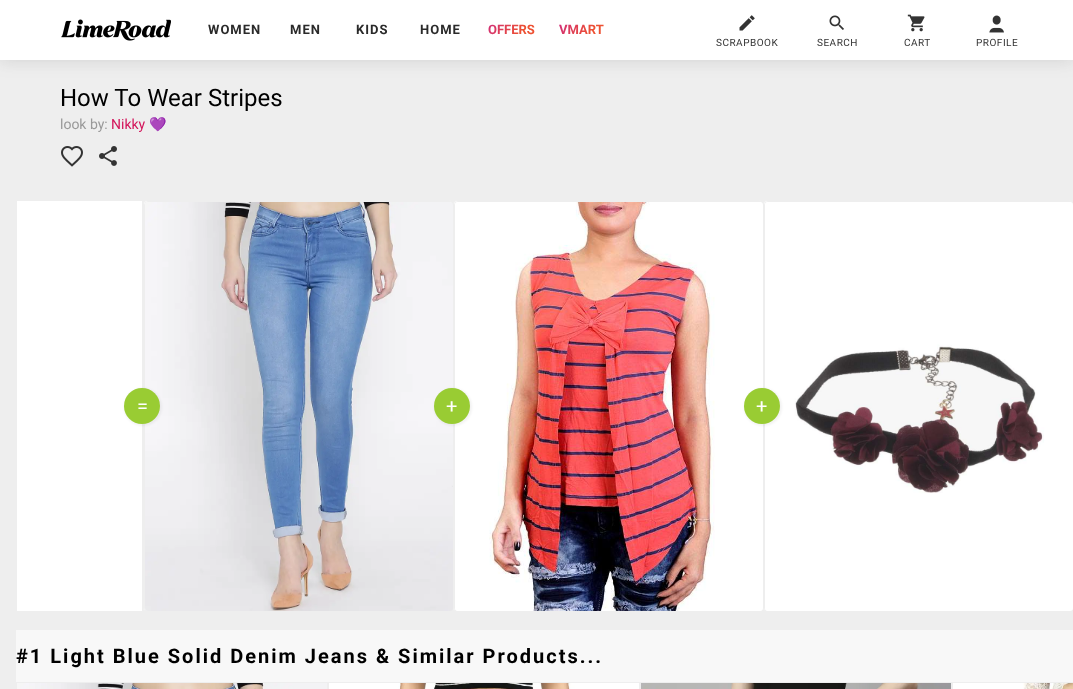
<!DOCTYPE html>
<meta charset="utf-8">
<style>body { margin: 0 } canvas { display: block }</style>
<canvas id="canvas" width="1073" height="689"></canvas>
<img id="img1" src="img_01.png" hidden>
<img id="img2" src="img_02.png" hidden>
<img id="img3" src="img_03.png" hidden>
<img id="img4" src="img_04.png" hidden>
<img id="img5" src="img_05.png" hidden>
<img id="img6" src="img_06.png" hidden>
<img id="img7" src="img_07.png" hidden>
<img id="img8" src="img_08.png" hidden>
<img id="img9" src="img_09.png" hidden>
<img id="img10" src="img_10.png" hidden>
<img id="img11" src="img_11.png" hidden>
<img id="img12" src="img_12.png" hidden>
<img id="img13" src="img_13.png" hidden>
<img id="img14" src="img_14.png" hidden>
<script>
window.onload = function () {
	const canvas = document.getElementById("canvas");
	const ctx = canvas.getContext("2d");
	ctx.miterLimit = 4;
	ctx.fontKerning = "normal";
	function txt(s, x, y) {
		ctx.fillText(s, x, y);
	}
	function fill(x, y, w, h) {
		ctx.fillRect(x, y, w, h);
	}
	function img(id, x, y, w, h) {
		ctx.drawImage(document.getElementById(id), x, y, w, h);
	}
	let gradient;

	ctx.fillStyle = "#EEEEEE";
	fill(0, 0, 1073, 689);
	ctx.fillStyle = "rgba(85, 85, 85, 0.16)";
	ctx.filter = "blur(8px)";
	ctx.beginPath();
	ctx.rect(0, 2, 1073, 60);
	ctx.fill();
	ctx.filter = "none";
	ctx.fillStyle = "#FFFFFF";
	fill(0, 0, 1073, 60);
	img("img1", 61, 19, 110, 22);
	img("img2", 739, 15, 16, 16);
	img("img3", 829, 15, 15, 15);
	img("img4", 907, 14, 18, 18);
	img("img5", 989, 15, 15, 18);
	img("img6", 61, 146, 22, 21);
	img("img7", 99, 146, 18, 20);
	fill(17, 201, 125, 410);
	ctx.beginPath();
	ctx.roundRect(143.5, 200.5, 309, 411, 3.5);
	ctx.fill();
	ctx.strokeStyle = "#EEEEEE";
	ctx.stroke();
	ctx.beginPath();
	ctx.roundRect(144.5, 201.5, 309, 410, 3.5);
	ctx.stroke();
	img("img8", 145, 202, 308, 409);
	ctx.fillStyle = "rgba(0, 0, 0, 0.05)";
	ctx.filter = "blur(1px)";
	ctx.beginPath();
	ctx.roundRect(124, 388, 38, 38, 19);
	ctx.fill();
	ctx.filter = "none";
	ctx.fillStyle = "#99CC33";
	ctx.beginPath();
	ctx.arc(142, 406, 18, 0, Math.PI * 2);
	ctx.fill();
	ctx.fillStyle = "#FFFFFF";
	ctx.beginPath();
	ctx.roundRect(453.5, 200.5, 309, 411, 3.5);
	ctx.fill();
	ctx.stroke();
	ctx.beginPath();
	ctx.roundRect(454.5, 201.5, 309, 410, 3.5);
	ctx.stroke();
	img("img9", 455, 202, 308, 409);
	ctx.fillStyle = "rgba(0, 0, 0, 0.05)";
	ctx.filter = "blur(1px)";
	ctx.beginPath();
	ctx.roundRect(434, 388, 38, 38, 19);
	ctx.fill();
	ctx.filter = "none";
	ctx.fillStyle = "#99CC33";
	ctx.beginPath();
	ctx.arc(452, 406, 18, 0, Math.PI * 2);
	ctx.fill();
	ctx.fillStyle = "#FFFFFF";
	ctx.beginPath();
	ctx.roundRect(763.5, 200.5, 309, 411, 3.5);
	ctx.fill();
	ctx.stroke();
	ctx.beginPath();
	ctx.roundRect(764.5, 201.5, 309, 410, 3.5);
	ctx.stroke();
	img("img10", 765, 202, 308, 409);
	ctx.fillStyle = "rgba(0, 0, 0, 0.05)";
	ctx.filter = "blur(1px)";
	ctx.beginPath();
	ctx.roundRect(744, 388, 38, 38, 19);
	ctx.fill();
	ctx.filter = "none";
	ctx.fillStyle = "#99CC33";
	ctx.beginPath();
	ctx.arc(762, 406, 18, 0, Math.PI * 2);
	ctx.fill();
	ctx.fillStyle = "#F8F8F8";
	fill(16, 630, 1057, 52);
	img("img11", 17, 683, 310, 6);
	img("img12", 329, 683, 310, 6);
	img("img13", 641, 683, 310, 6);
	img("img14", 953, 683, 120, 6);
	ctx.letterSpacing = "1px";
	ctx.font = "bold 13px Roboto";
	ctx.fillStyle = "#2A2A2A";
	txt("WOMEN", 208, 34);
	txt("MEN", 290, 34);
	txt("KIDS", 356, 34);
	txt("HOME", 420, 34);
	ctx.letterSpacing = "0px";
	gradient = ctx.createLinearGradient(489, 15, 531, 42);
	gradient.addColorStop(0, "#CE297E");
	gradient.addColorStop(0.73, "#ED5133");
	ctx.fillStyle = gradient;
	txt("OFFERS", 488, 34);
	gradient = ctx.createLinearGradient(560, 16, 600, 42);
	gradient.addColorStop(0, "#CE297E");
	gradient.addColorStop(0.73, "#ED5133");
	ctx.fillStyle = gradient;
	txt("VMART", 559, 34);
	ctx.letterSpacing = "0.5px";
	ctx.font = "10px Roboto";
	ctx.fillStyle = "#333333";
	txt("SCRAPBOOK", 716, 46);
	txt("SEARCH", 817, 46);
	txt("CART", 904, 46);
	txt("PROFILE", 976, 46);
	ctx.letterSpacing = "0px";
	ctx.font = "24px Roboto";
	ctx.fillStyle = "#000000";
	txt("How To Wear Stripes", 60, 106);
	ctx.font = "14px Roboto";
	ctx.fillStyle = "#999999";
	txt("look by:", 60, 129);
	ctx.fillStyle = "#D3145A";
	txt("Nikky", 111, 129);
	ctx.font = "14px Noto Color Emoji";
	txt("💜", 149, 129);
	ctx.font = "20px Roboto";
	ctx.fillStyle = "#FFFFFF";
	txt("=", 137, 413);
	txt("+", 446, 413);
	txt("+", 756, 413);
	ctx.letterSpacing = "2px";
	ctx.font = "bold 20px Roboto";
	ctx.fillStyle = "#000000";
	txt("#1 Light Blue Solid Denim Jeans & Similar Products...", 16, 663);
};
</script>
